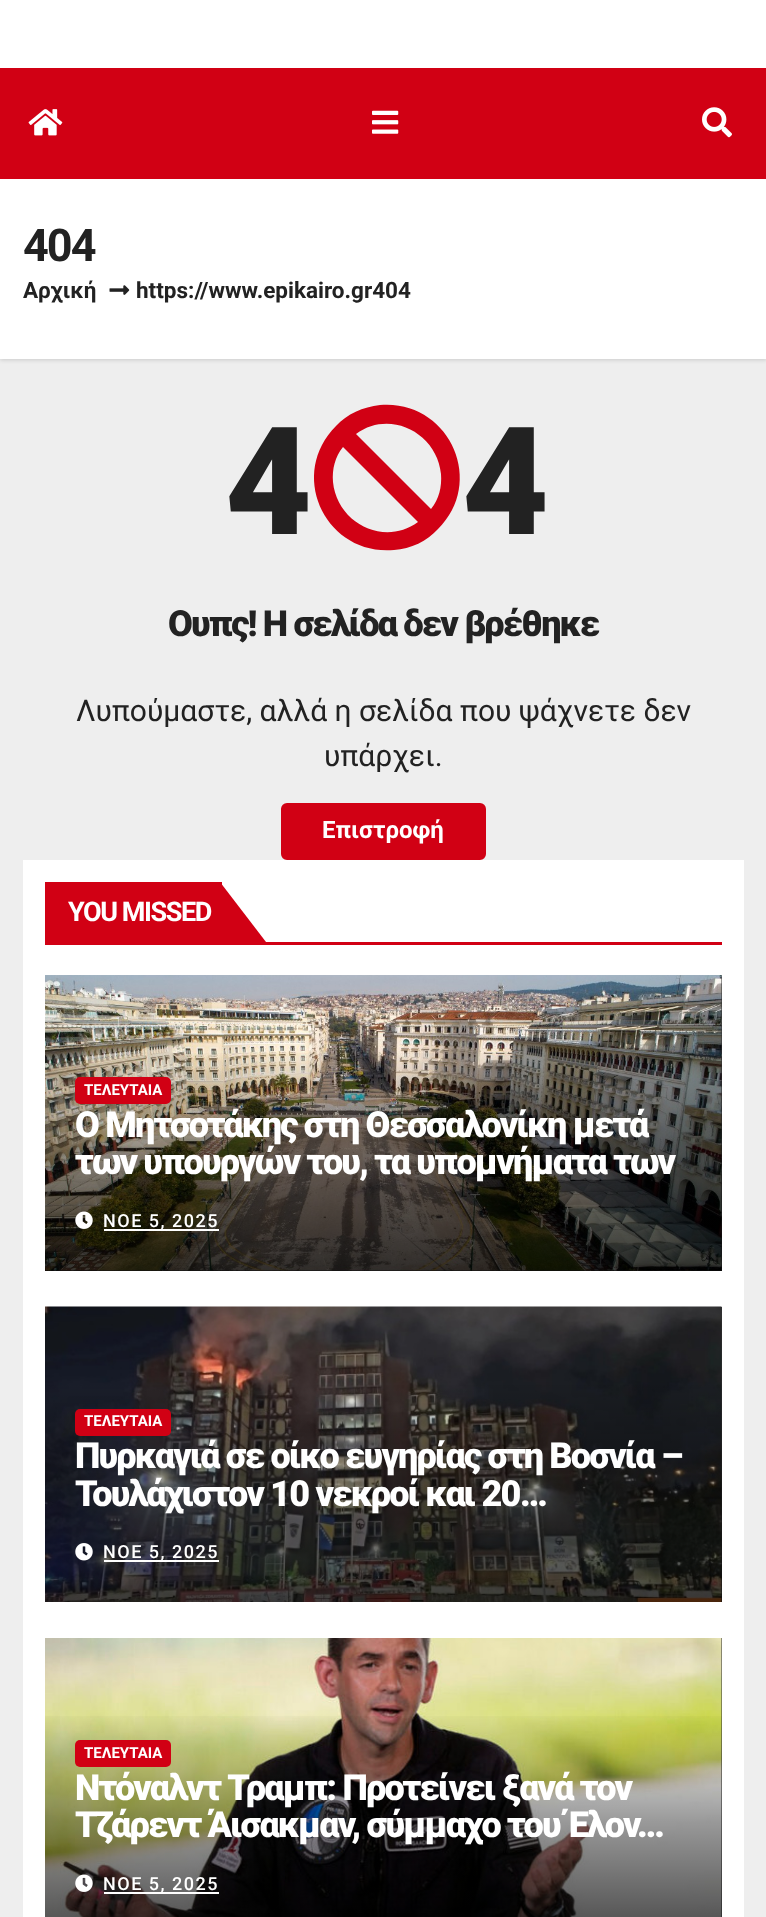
<!DOCTYPE html>
<meta charset="utf-8">
<style>body { margin: 0 } canvas { display: block }</style>
<canvas id="canvas" width="766" height="1917"></canvas>
<img id="img1" src="img_01.png" hidden>
<img id="img2" src="img_02.png" hidden>
<img id="img3" src="img_03.png" hidden>
<img id="img4" src="img_04.png" hidden>
<img id="img5" src="img_05.png" hidden>
<img id="img6" src="img_06.png" hidden>
<img id="img7" src="img_07.png" hidden>
<img id="img8" src="img_08.png" hidden>
<img id="img9" src="img_09.png" hidden>
<img id="img10" src="img_10.png" hidden>
<script>
window.onload = function () {
	const canvas = document.getElementById("canvas");
	const ctx = canvas.getContext("2d");
	ctx.miterLimit = 4;
	ctx.fontKerning = "normal";
	function txt(s, x, y) {
		ctx.fillText(s, x, y);
	}
	function fill(x, y, w, h) {
		ctx.fillRect(x, y, w, h);
	}
	function round(x, y, w, h, r) {
		ctx.beginPath();
		ctx.roundRect(x, y, w, h, r);
		ctx.fill();
	}
	function img(id, x, y, w, h) {
		ctx.drawImage(document.getElementById(id), x, y, w, h);
	}
	let gradient;

	ctx.fillStyle = "#EEEEEE";
	fill(0, 0, 766, 1917);
	ctx.fillStyle = "#FFFFFF";
	fill(0, 0, 766, 68);
	ctx.fillStyle = "rgba(0, 0, 0, 0.15)";
	ctx.filter = "blur(2px)";
	ctx.beginPath();
	ctx.rect(0, 180, 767, 180);
	ctx.fill();
	ctx.filter = "none";
	ctx.fillStyle = "#D10014";
	fill(0, 68, 766, 111);
	img("img1", 28, 109, 35, 27);
	img("img2", 372, 110, 27, 24);
	img("img3", 702, 107, 30, 31);
	ctx.fillStyle = "#FFFFFF";
	fill(0, 179, 766, 180);
	img("img4", 109, 285, 21, 10);
	ctx.fillStyle = "#D10014";
	ctx.beginPath();
	ctx.moveTo(336, 426);
	ctx.bezierCurveTo(347, 414, 363, 407, 380, 405);
	ctx.bezierCurveTo(448, 399, 487, 481, 438, 529);
	ctx.bezierCurveTo(427, 541, 411, 549, 394, 550);
	ctx.bezierCurveTo(326, 556, 287, 475, 336, 426);
	ctx.closePath();
	ctx.moveTo(441, 474);
	ctx.bezierCurveTo(437, 433, 390, 409, 356, 434);
	ctx.lineTo(431, 509);
	ctx.bezierCurveTo(439, 499, 442, 487, 441, 474);
	ctx.closePath();
	ctx.moveTo(333, 482);
	ctx.bezierCurveTo(337, 523, 384, 547, 418, 522);
	ctx.lineTo(343, 447);
	ctx.bezierCurveTo(335, 457, 332, 469, 333, 482);
	ctx.closePath();
	ctx.fill();
	ctx.beginPath();
	ctx.roundRect(282.5, 804.5, 202, 54, 4.5);
	ctx.fill();
	ctx.strokeStyle = "#D10014";
	ctx.lineWidth = 3;
	ctx.stroke();
	ctx.fillStyle = "#FFFFFF";
	fill(23, 860, 721, 1057);
	ctx.fillStyle = "#D10014";
	fill(45, 942, 677, 3);
	fill(45, 882, 177, 60);
	ctx.beginPath();
	ctx.moveTo(220, 942);
	ctx.lineTo(220, 882);
	ctx.lineTo(266, 942);
	ctx.closePath();
	ctx.fill();
	ctx.fillStyle = "#333333";
	fill(45, 975, 677, 296);
	img("img5", 45, 975, 677, 296);
	gradient = ctx.createLinearGradient(383, 1047, 383, 1271);
	gradient.addColorStop(0, "rgba(0, 0, 0, 0)");
	gradient.addColorStop(0.5, "rgba(0, 0, 0, 0.4)");
	gradient.addColorStop(1, "rgba(0, 0, 0, 0.7)");
	ctx.fillStyle = gradient;
	fill(45, 1053, 677, 218);
	ctx.fillStyle = "#D10014";
	round(75, 1077, 96, 27, 5);
	img("img6", 75, 1211, 18, 18);
	ctx.fillStyle = "#FFFFFF";
	fill(104, 1229, 115, 2);
	ctx.fillStyle = "#333333";
	fill(721, 1307, 1, 295);
	img("img7", 45, 1306, 677, 296);
	gradient = ctx.createLinearGradient(383, 1379, 383, 1602);
	gradient.addColorStop(0, "rgba(0, 0, 0, 0)");
	gradient.addColorStop(0.5, "rgba(0, 0, 0, 0.4)");
	gradient.addColorStop(1, "rgba(0, 0, 0, 0.7)");
	ctx.fillStyle = gradient;
	fill(45, 1385, 677, 217);
	ctx.fillStyle = "#D10014";
	round(75, 1409, 96, 27, 5);
	img("img8", 75, 1543, 18, 18);
	ctx.fillStyle = "#FFFFFF";
	fill(104, 1560, 115, 2);
	ctx.fillStyle = "#333333";
	fill(721, 1638, 1, 279);
	img("img9", 45, 1638, 677, 279);
	gradient = ctx.createLinearGradient(383, 1710, 383, 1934);
	gradient.addColorStop(0, "rgba(0, 0, 0, 0)");
	gradient.addColorStop(0.5, "rgba(0, 0, 0, 0.4)");
	gradient.addColorStop(1, "rgba(0, 0, 0, 0.7)");
	ctx.fillStyle = gradient;
	fill(45, 1716, 677, 201);
	ctx.fillStyle = "#D10014";
	round(75, 1740, 96, 27, 5);
	img("img10", 75, 1874, 18, 18);
	ctx.fillStyle = "#FFFFFF";
	fill(104, 1892, 115, 2);
	ctx.letterSpacing = "-2px";
	ctx.font = "bold 45px Roboto";
	ctx.fillStyle = "#222222";
	txt("404", 23, 261);
	ctx.letterSpacing = "0px";
	ctx.font = "bold 22.5px Roboto";
	txt("Αρχική", 23, 298);
	txt("https://www.epikairo.gr404", 136, 298);
	ctx.letterSpacing = "-8px";
	ctx.font = "900 150px Roboto";
	txt("4", 225, 534);
	txt("4", 462, 534);
	ctx.letterSpacing = "-1.8px";
	ctx.font = "900 36px Roboto";
	txt("Ουπς! Η σελίδα δεν βρέθηκε", 168, 636);
	ctx.letterSpacing = "0px";
	ctx.font = "30px Roboto";
	txt("Λυπούμαστε, αλλά η σελίδα που ψάχνετε δεν", 76, 721);
	txt("υπάρχει.", 324, 766);
	ctx.font = "bold 24px Roboto";
	ctx.fillStyle = "#FFFFFF";
	txt("Επιστροφή", 322, 838);
	ctx.letterSpacing = "-1.4px";
	ctx.font = "bold 27px Roboto";
	txt("YOU MISSED", 68, 921);
	ctx.letterSpacing = "0px";
	ctx.font = "bold 15px Roboto";
	txt("ΤΕΛΕΥΤΑΙΑ", 84, 1095);
	ctx.letterSpacing = "-1.8px";
	ctx.font = "900 36px Roboto";
	txt("Ο Μητσοτάκης στη Θεσσαλονίκη μετά", 75, 1137);
	txt("των υπουργών του, τα υπομνήματα των", 75, 1174);
	ctx.letterSpacing = "1.5px";
	ctx.font = "500 18px Roboto";
	txt("ΝΟΕ 5, 2025", 103, 1227);
	ctx.letterSpacing = "0px";
	ctx.font = "bold 15px Roboto";
	txt("ΤΕΛΕΥΤΑΙΑ", 84, 1426);
	ctx.letterSpacing = "-1.8px";
	ctx.font = "900 36px Roboto";
	txt("Πυρκαγιά σε οίκο ευγηρίας στη Βοσνία –", 75, 1468);
	txt("Τουλάχιστον 10 νεκροί και 20…", 75, 1506);
	ctx.letterSpacing = "1.5px";
	ctx.font = "500 18px Roboto";
	txt("ΝΟΕ 5, 2025", 103, 1558);
	ctx.letterSpacing = "0px";
	ctx.font = "bold 15px Roboto";
	txt("ΤΕΛΕΥΤΑΙΑ", 84, 1758);
	ctx.letterSpacing = "-1.8px";
	ctx.font = "900 36px Roboto";
	txt("Ντόναλντ Τραμπ: Προτείνει ξανά τον", 75, 1800);
	txt("Τζάρεντ Άισακμαν, σύμμαχο του Έλον…", 75, 1837);
	ctx.letterSpacing = "1.5px";
	ctx.font = "500 18px Roboto";
	txt("ΝΟΕ 5, 2025", 103, 1890);
};
</script>
